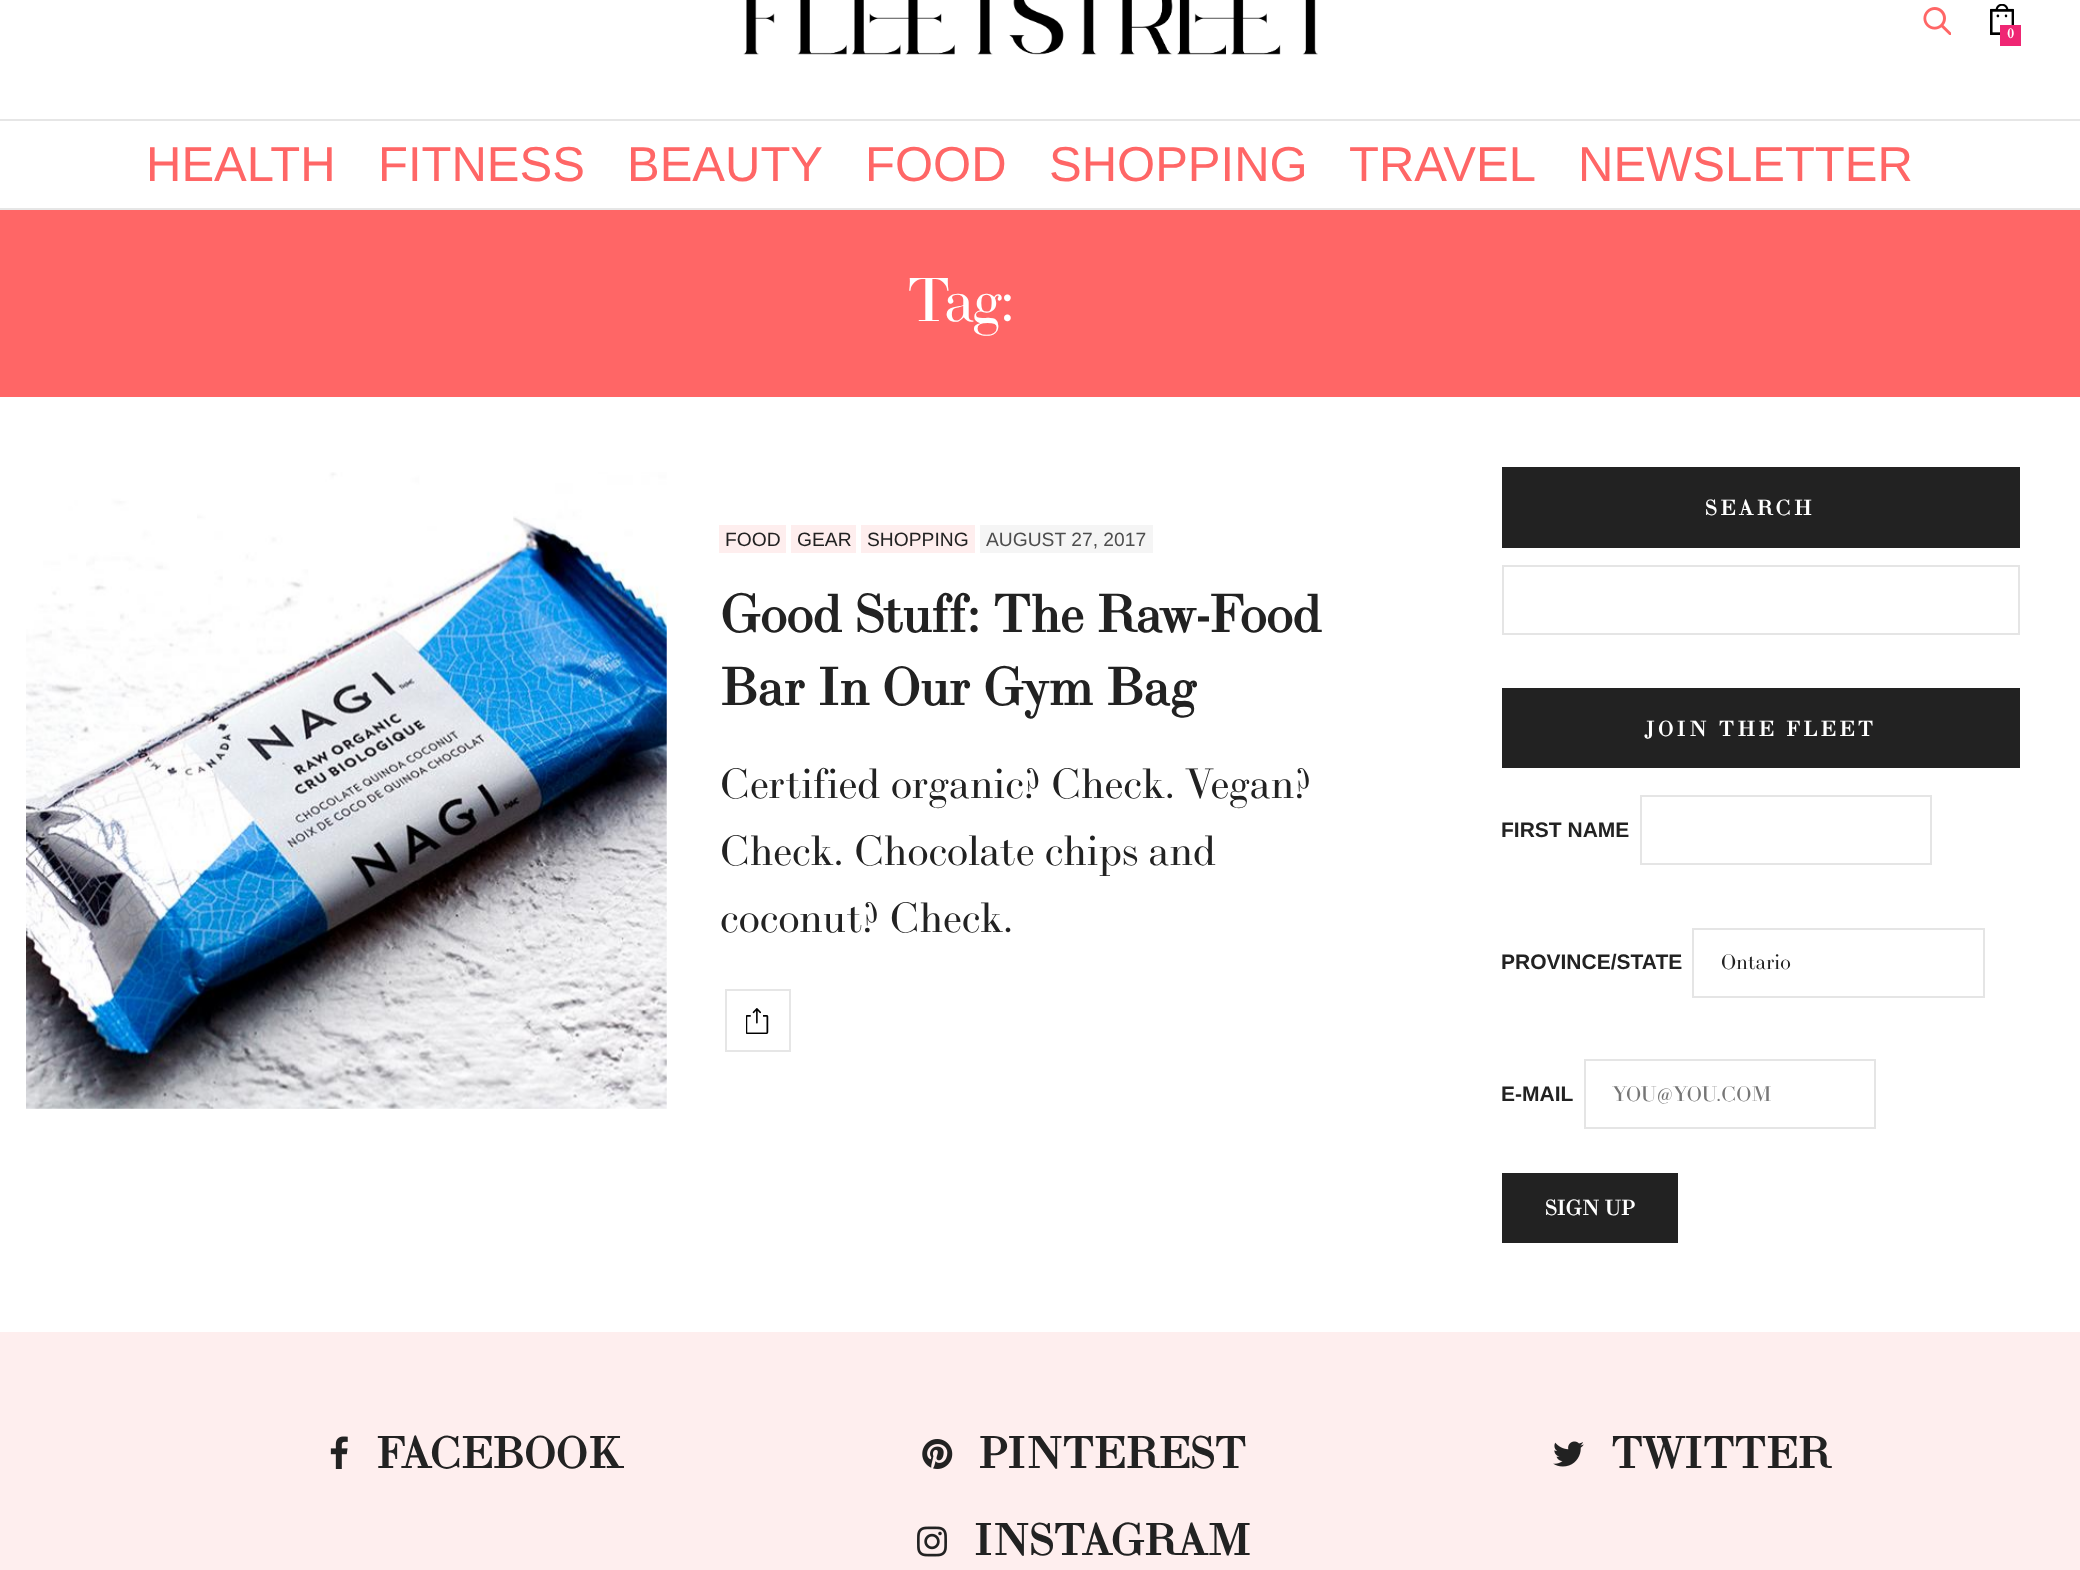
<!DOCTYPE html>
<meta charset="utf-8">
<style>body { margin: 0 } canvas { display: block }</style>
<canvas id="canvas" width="2080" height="1570"></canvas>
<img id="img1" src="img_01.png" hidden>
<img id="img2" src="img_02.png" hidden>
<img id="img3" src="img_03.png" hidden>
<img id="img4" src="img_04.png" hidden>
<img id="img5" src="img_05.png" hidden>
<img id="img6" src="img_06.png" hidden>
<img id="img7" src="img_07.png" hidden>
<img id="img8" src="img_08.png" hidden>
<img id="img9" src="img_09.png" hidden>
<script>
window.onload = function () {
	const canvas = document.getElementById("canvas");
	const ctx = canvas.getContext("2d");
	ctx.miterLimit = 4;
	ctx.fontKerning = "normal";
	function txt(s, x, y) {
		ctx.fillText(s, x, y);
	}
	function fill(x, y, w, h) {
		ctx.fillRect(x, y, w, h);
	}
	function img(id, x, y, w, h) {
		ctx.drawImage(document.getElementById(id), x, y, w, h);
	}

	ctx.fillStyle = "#FFFFFF";
	fill(0, 0, 2080, 1570);
	ctx.fillStyle = "#E6E6E6";
	fill(0, 119, 2080, 2);
	img("img1", 743, 0, 575, 55);
	img("img2", 1923, 7, 28, 28);
	img("img3", 1990, 4, 24, 31);
	ctx.fillStyle = "#EF2673";
	fill(2000, 25, 21, 21);
	ctx.fillStyle = "#E6E6E6";
	fill(0, 208, 2080, 2);
	ctx.fillStyle = "#FF6666";
	fill(0, 210, 2080, 187);
	img("img4", 26, 472, 641, 637);
	ctx.fillStyle = "#FEEEEE";
	fill(719, 525, 67, 28);
	fill(791, 525, 65, 28);
	fill(861, 525, 114, 28);
	ctx.fillStyle = "#F5F5F5";
	fill(980, 525, 173, 28);
	ctx.strokeStyle = "#E6E6E6";
	ctx.lineWidth = 2;
	ctx.strokeRect(726, 990, 64, 61);
	img("img5", 746, 1008, 23, 26);
	ctx.fillStyle = "#222222";
	fill(1502, 467, 518, 81);
	ctx.strokeStyle = "#E5E5E5";
	ctx.strokeRect(1503, 566, 516, 68);
	fill(1502, 688, 518, 80);
	ctx.strokeRect(1641, 796, 290, 68);
	ctx.strokeRect(1693, 929, 291, 68);
	ctx.strokeRect(1585, 1060, 290, 68);
	fill(1502, 1173, 176, 70);
	ctx.fillStyle = "#FEEEEE";
	fill(0, 1332, 2080, 238);
	img("img6", 330, 1436, 18, 33);
	img("img7", 922, 1439, 31, 30);
	img("img8", 1553, 1441, 31, 26);
	img("img9", 917, 1526, 30, 31);
	ctx.font = "bold 14px 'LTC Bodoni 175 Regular'";
	ctx.fillStyle = "#FFFFFF";
	txt("0", 2007, 38);
	ctx.font = "49px Liberation Sans";
	ctx.fillStyle = "#FF6666";
	txt("HEALTH", 146, 181);
	txt("FITNESS", 378, 181);
	txt("BEAUTY", 627, 181);
	txt("FOOD", 865, 181);
	txt("SHOPPING", 1049, 181);
	txt("TRAVEL", 1349, 181);
	txt("NEWSLETTER", 1578, 181);
	ctx.letterSpacing = "-3px";
	ctx.font = "61px 'LTC Bodoni 175 Regular'";
	ctx.fillStyle = "#FFFFFF";
	txt("Tag:", 907, 321);
	ctx.letterSpacing = "0px";
	ctx.font = "19.25px Liberation Sans";
	ctx.fillStyle = "#222222";
	txt("FOOD", 725, 546);
	txt("GEAR", 797, 546);
	txt("SHOPPING", 867, 546);
	ctx.fillStyle = "#4D4D4D";
	txt("AUGUST 27, 2017", 986, 546);
	ctx.font = "bold 52.5px 'LTC Bodoni 175 Regular'";
	ctx.fillStyle = "#222222";
	txt("Good Stuff: The Raw-Food", 720, 632);
	txt("Bar In Our Gym Bag", 720, 705);
	ctx.font = "42px 'LTC Bodoni 175 Regular'";
	txt("Certified organic? Check. Vegan?", 720, 798);
	txt("Check. Chocolate chips and", 720, 865);
	txt("coconut? Check.", 720, 932);
	ctx.letterSpacing = "3.5px";
	ctx.font = "bold 21px 'LTC Bodoni 175 Regular'";
	ctx.fillStyle = "#FFFFFF";
	txt("SEARCH", 1705, 515);
	txt("JOIN THE FLEET", 1644, 736);
	ctx.letterSpacing = "0px";
	ctx.font = "bold 21px Liberation Sans";
	ctx.fillStyle = "#222222";
	txt("FIRST NAME", 1501, 837);
	txt("PROVINCE/STATE", 1501, 969);
	ctx.font = "21px 'LTC Bodoni 175 Regular'";
	txt("Ontario", 1721, 969);
	ctx.font = "bold 21px Liberation Sans";
	txt("E-MAIL", 1501, 1101);
	ctx.font = "21px 'LTC Bodoni 175 Regular'";
	ctx.fillStyle = "#767676";
	txt("YOU@YOU.COM", 1612, 1101);
	ctx.font = "bold 21px 'LTC Bodoni 175 Regular'";
	ctx.fillStyle = "#FFFFFF";
	txt("SIGN UP", 1545, 1215);
	ctx.font = "bold 43.75px 'LTC Bodoni 175 Regular'";
	ctx.fillStyle = "#222222";
	txt("FACEBOOK", 376, 1468);
	txt("PINTEREST", 978, 1468);
	txt("TWITTER", 1611, 1468);
	txt("INSTAGRAM", 974, 1555);
};
</script>
